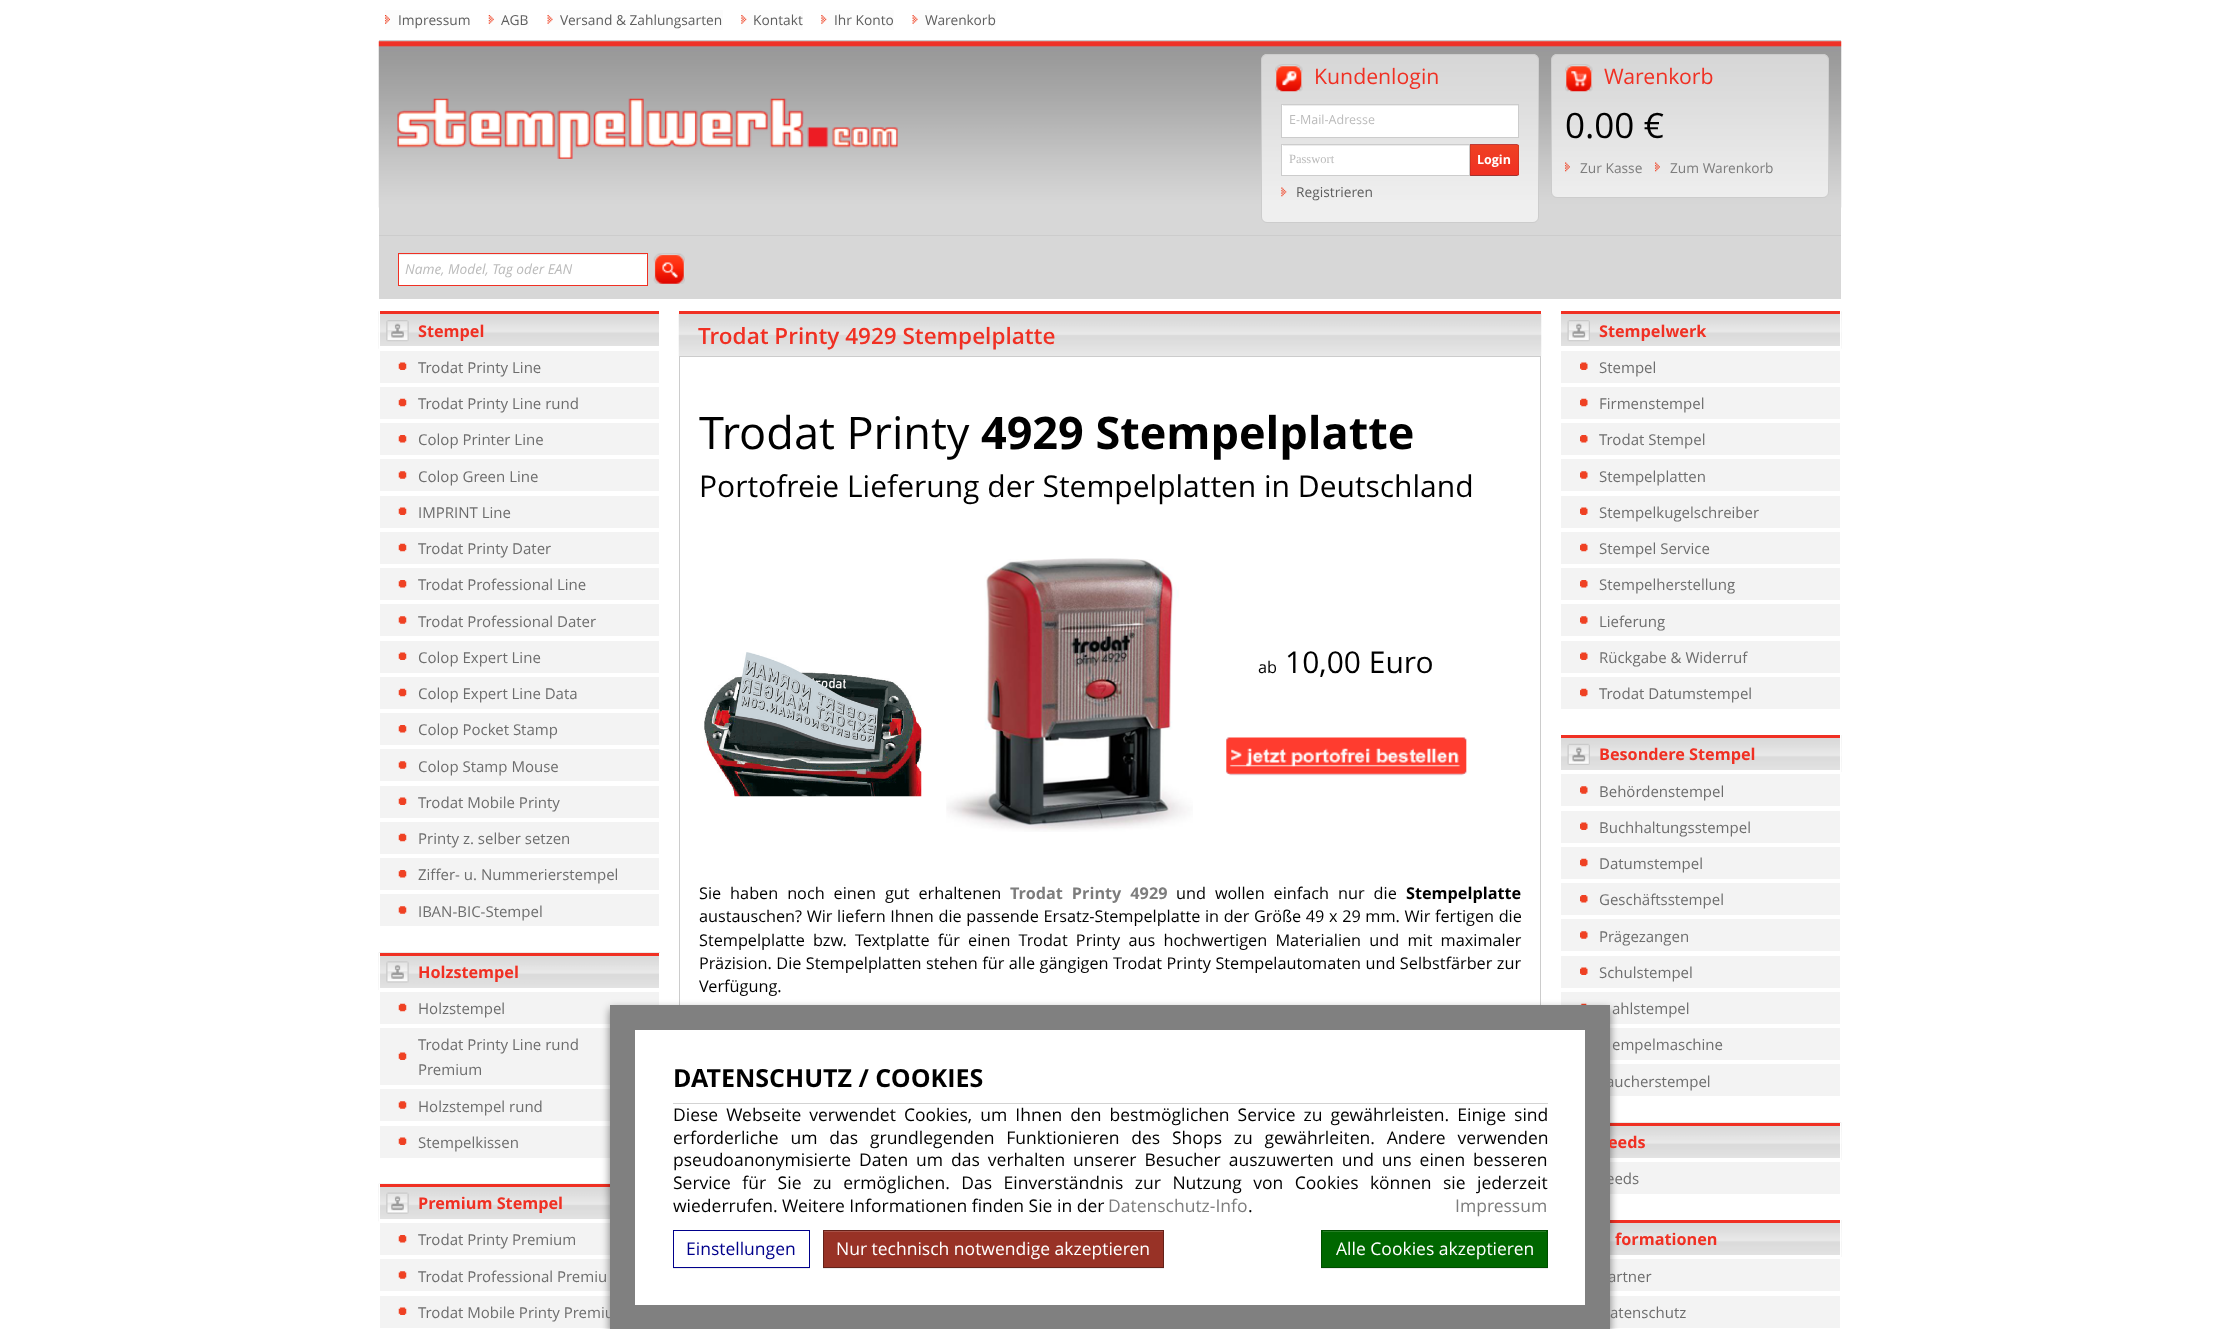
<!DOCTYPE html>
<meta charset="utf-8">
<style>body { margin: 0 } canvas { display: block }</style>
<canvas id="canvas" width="2220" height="1329"></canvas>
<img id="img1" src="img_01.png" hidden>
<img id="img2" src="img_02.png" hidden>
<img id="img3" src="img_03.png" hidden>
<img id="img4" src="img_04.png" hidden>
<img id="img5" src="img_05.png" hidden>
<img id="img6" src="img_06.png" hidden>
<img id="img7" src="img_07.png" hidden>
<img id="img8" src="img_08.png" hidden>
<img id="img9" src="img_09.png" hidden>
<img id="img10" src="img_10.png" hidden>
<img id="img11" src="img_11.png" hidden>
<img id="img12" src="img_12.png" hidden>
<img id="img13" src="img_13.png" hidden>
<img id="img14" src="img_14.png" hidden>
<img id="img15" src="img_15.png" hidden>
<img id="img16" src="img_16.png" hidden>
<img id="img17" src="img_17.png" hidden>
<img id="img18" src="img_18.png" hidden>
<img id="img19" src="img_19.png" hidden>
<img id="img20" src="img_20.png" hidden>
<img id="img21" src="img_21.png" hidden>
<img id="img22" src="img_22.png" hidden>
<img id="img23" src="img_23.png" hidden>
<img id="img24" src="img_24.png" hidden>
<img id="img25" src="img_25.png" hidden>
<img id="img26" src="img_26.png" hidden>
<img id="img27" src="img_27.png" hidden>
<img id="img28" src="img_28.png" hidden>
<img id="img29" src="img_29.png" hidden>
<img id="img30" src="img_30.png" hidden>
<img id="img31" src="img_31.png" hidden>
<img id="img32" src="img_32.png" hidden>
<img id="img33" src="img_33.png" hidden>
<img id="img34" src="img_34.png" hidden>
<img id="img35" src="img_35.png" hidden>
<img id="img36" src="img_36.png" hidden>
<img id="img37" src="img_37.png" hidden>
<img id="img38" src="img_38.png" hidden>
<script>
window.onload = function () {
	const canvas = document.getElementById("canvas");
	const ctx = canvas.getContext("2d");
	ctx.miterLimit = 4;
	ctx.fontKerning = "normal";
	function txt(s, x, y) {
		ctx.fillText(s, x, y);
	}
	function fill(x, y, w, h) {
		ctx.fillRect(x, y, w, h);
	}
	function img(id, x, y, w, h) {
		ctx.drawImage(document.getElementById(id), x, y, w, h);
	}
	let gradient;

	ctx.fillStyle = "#FFFFFF";
	fill(0, 0, 2220, 1329);
	ctx.fillStyle = "#FCFCFC";
	fill(385, 10, 85, 20);
	img("img1", 385, 15, 5, 9);
	fill(489, 10, 40, 20);
	img("img2", 488, 15, 6, 9);
	fill(548, 10, 175, 20);
	img("img3", 547, 15, 6, 9);
	fill(741, 10, 62, 20);
	img("img4", 741, 15, 6, 9);
	fill(821, 10, 73, 20);
	img("img4", 821, 15, 6, 9);
	fill(913, 10, 83, 20);
	img("img3", 912, 15, 6, 9);
	ctx.fillStyle = "#D7D7D7";
	fill(379, 41, 1462, 194);
	img("img5", 378, 41, 1464, 167);
	ctx.fillStyle = "#CCCCCC";
	fill(379, 40, 1462, 1);
	fill(379, 235, 1462, 1);
	img("img6", 397, 98, 501, 61);
	img("img7", 1261, 54, 278, 169);
	ctx.beginPath();
	ctx.roundRect(1261.5, 54.5, 277, 168, 5.5);
	ctx.strokeStyle = "#CCCCCC";
	ctx.stroke();
	img("img8", 1275, 64, 28, 28);
	ctx.fillStyle = "#FFFFFF";
	fill(1282, 105, 236, 32);
	ctx.fillStyle = "#ECECEC";
	fill(1283, 105, 235, 1);
	ctx.strokeRect(1281.5, 104.5, 237, 33);
	ctx.fillStyle = "#FFFFFF";
	fill(1282, 145, 187, 30);
	ctx.fillStyle = "#ECECEC";
	fill(1283, 145, 186, 1);
	ctx.strokeRect(1281.5, 144.5, 188, 31);
	ctx.fillStyle = "#D34541";
	ctx.beginPath();
	ctx.roundRect(1470, 144, 49, 32, [0, 2.5, 2.5, 0]);
	ctx.fill();
	gradient = ctx.createLinearGradient(1494, 145, 1494, 175);
	gradient.addColorStop(0, "#EF4123");
	gradient.addColorStop(1, "#F03023");
	ctx.fillStyle = gradient;
	fill(1470, 145, 49, 30);
	ctx.fillStyle = "rgba(0, 0, 0, 0.1)";
	ctx.beginPath();
	ctx.moveTo(1518, 144);
	ctx.lineTo(1516, 144);
	ctx.lineTo(1470, 144);
	ctx.lineTo(1471, 145);
	ctx.lineTo(1517, 145);
	ctx.closePath();
	ctx.fill();
	ctx.beginPath();
	ctx.moveTo(1519, 175);
	ctx.lineTo(1518, 175.5);
	ctx.lineTo(1517, 174.5);
	ctx.lineTo(1518, 174);
	ctx.lineTo(1518, 146);
	ctx.lineTo(1517, 145.5);
	ctx.lineTo(1518, 144.5);
	ctx.lineTo(1519, 145);
	ctx.closePath();
	ctx.fill();
	ctx.fillStyle = "rgba(0, 0, 0, 0.25)";
	ctx.beginPath();
	ctx.moveTo(1518, 176);
	ctx.lineTo(1516, 176);
	ctx.lineTo(1470, 176);
	ctx.lineTo(1471, 175);
	ctx.lineTo(1517, 175);
	ctx.closePath();
	ctx.fill();
	ctx.fillStyle = "rgba(0, 0, 0, 0.1)";
	ctx.beginPath();
	ctx.moveTo(1471, 145);
	ctx.lineTo(1471, 175);
	ctx.lineTo(1470, 176);
	ctx.lineTo(1470, 144);
	ctx.closePath();
	ctx.fill();
	img("img9", 1281, 187, 6, 10);
	img("img10", 1551, 54, 278, 144);
	ctx.beginPath();
	ctx.roundRect(1551.5, 54.5, 277, 143, 5.5);
	ctx.stroke();
	img("img11", 1565, 64, 28, 28);
	img("img12", 1565, 162, 5, 10);
	img("img12", 1655, 162, 5, 10);
	ctx.fillStyle = "#D7D7D7";
	fill(379, 236, 1462, 63);
	ctx.fillStyle = "#FFFFFF";
	fill(399, 254, 248, 31);
	ctx.fillStyle = "#ECECEC";
	fill(399, 254, 247, 1);
	ctx.strokeStyle = "#F03023";
	ctx.strokeRect(398.5, 253.5, 249, 32);
	img("img13", 653, 253, 32, 31);
	img("img14", 378, 311, 281, 38);
	ctx.fillStyle = "#F03023";
	fill(379, 311, 281, 3);
	ctx.fillStyle = "#FFFFFF";
	fill(659, 311, 1, 3);
	fill(379, 311, 1, 3);
	img("img15", 386, 320, 23, 22);
	fill(379, 346, 281, 3);
	fill(379, 314, 1, 35);
	ctx.fillStyle = "#F3F3F3";
	fill(380, 351, 279, 32);
	img("img16", 398, 362, 9, 8);
	fill(380, 387, 279, 32);
	img("img17", 398, 398, 9, 9);
	fill(380, 423, 279, 32);
	img("img18", 398, 435, 9, 8);
	fill(380, 459, 279, 32);
	img("img19", 398, 471, 9, 8);
	fill(380, 496, 279, 32);
	img("img16", 398, 507, 9, 8);
	fill(380, 532, 279, 32);
	img("img17", 398, 543, 9, 9);
	fill(380, 568, 279, 32);
	img("img18", 398, 580, 9, 8);
	fill(380, 604, 279, 32);
	img("img19", 398, 616, 9, 8);
	fill(380, 641, 279, 32);
	img("img16", 398, 652, 9, 8);
	fill(380, 677, 279, 32);
	img("img17", 398, 688, 9, 9);
	fill(380, 713, 279, 32);
	img("img18", 398, 725, 9, 8);
	fill(380, 749, 279, 32);
	img("img19", 398, 761, 9, 8);
	fill(380, 786, 279, 32);
	img("img16", 398, 797, 9, 8);
	fill(380, 822, 279, 32);
	img("img17", 398, 833, 9, 9);
	fill(380, 858, 279, 32);
	img("img18", 398, 870, 9, 8);
	fill(380, 894, 279, 32);
	img("img19", 398, 906, 9, 8);
	img("img20", 378, 952, 282, 38);
	ctx.fillStyle = "#F03023";
	fill(379, 953, 281, 3);
	ctx.fillStyle = "#FFFFFF";
	fill(659, 953, 1, 37);
	fill(379, 953, 1, 3);
	img("img21", 386, 961, 23, 22);
	fill(379, 988, 281, 2);
	fill(379, 955, 1, 35);
	ctx.fillStyle = "#F3F3F3";
	fill(380, 992, 279, 32);
	img("img17", 398, 1003, 9, 9);
	fill(380, 1028, 230, 57);
	img("img16", 398, 1052, 9, 8);
	fill(380, 1089, 230, 32);
	img("img19", 398, 1101, 9, 8);
	fill(380, 1126, 230, 32);
	img("img16", 398, 1137, 9, 8);
	img("img22", 378, 1183, 232, 39);
	ctx.fillStyle = "#F03023";
	fill(379, 1184, 231, 3);
	ctx.fillStyle = "#FFFFFF";
	fill(379, 1184, 1, 3);
	img("img23", 386, 1192, 23, 22);
	fill(379, 1219, 231, 3);
	fill(379, 1186, 1, 35);
	ctx.fillStyle = "#F3F3F3";
	fill(380, 1223, 230, 32);
	img("img18", 398, 1235, 9, 8);
	fill(380, 1259, 230, 32);
	img("img19", 398, 1271, 9, 8);
	fill(380, 1296, 230, 32);
	img("img16", 398, 1307, 9, 8);
	img("img24", 678, 313, 864, 44);
	ctx.fillStyle = "#F03023";
	fill(679, 311, 862, 3);
	ctx.strokeStyle = "#CCCCCC";
	ctx.strokeRect(679.5, 356.5, 861, 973);
	img("img25", 704, 652, 218, 145);
	img("img26", 946, 558, 247, 274);
	img("img27", 1226, 737, 241, 39);
	img("img28", 1561, 311, 281, 38);
	fill(1560, 311, 281, 3);
	ctx.fillStyle = "#FFFFFF";
	fill(1840, 311, 1, 38);
	fill(1560, 311, 1, 3);
	img("img29", 1567, 320, 23, 22);
	fill(1560, 346, 281, 3);
	ctx.fillStyle = "#F3F3F3";
	fill(1561, 351, 279, 32);
	img("img30", 1580, 362, 8, 8);
	fill(1561, 387, 279, 32);
	img("img31", 1580, 398, 8, 9);
	fill(1561, 423, 279, 32);
	img("img32", 1580, 435, 8, 8);
	fill(1561, 459, 279, 32);
	img("img33", 1580, 471, 8, 8);
	fill(1561, 496, 279, 32);
	img("img30", 1580, 507, 8, 8);
	fill(1561, 532, 279, 32);
	img("img31", 1580, 543, 8, 9);
	fill(1561, 568, 279, 32);
	img("img32", 1580, 580, 8, 8);
	fill(1561, 604, 279, 32);
	img("img33", 1580, 616, 8, 8);
	fill(1561, 641, 279, 32);
	img("img30", 1580, 652, 8, 8);
	fill(1561, 677, 279, 32);
	img("img31", 1580, 688, 8, 9);
	img("img34", 1561, 735, 281, 37);
	ctx.fillStyle = "#F03023";
	fill(1560, 735, 281, 3);
	ctx.fillStyle = "#FFFFFF";
	fill(1840, 735, 1, 38);
	fill(1560, 735, 1, 3);
	img("img35", 1567, 743, 23, 22);
	fill(1560, 770, 281, 2);
	ctx.fillStyle = "#F3F3F3";
	fill(1561, 774, 279, 32);
	img("img33", 1580, 786, 8, 8);
	fill(1561, 811, 279, 32);
	img("img30", 1580, 822, 8, 8);
	fill(1561, 847, 279, 32);
	img("img31", 1580, 858, 8, 9);
	fill(1561, 883, 279, 32);
	img("img32", 1580, 895, 8, 8);
	fill(1561, 919, 279, 32);
	img("img33", 1580, 931, 8, 8);
	fill(1561, 956, 279, 32);
	img("img30", 1580, 967, 8, 8);
	fill(1561, 992, 279, 32);
	img("img36", 1580, 1003, 8, 2);
	fill(1610, 1028, 230, 32);
	fill(1610, 1064, 230, 32);
	img("img37", 1610, 1122, 232, 38);
	ctx.fillStyle = "#F03023";
	fill(1610, 1123, 231, 3);
	ctx.fillStyle = "#FFFFFF";
	fill(1840, 1123, 1, 37);
	fill(1610, 1158, 231, 2);
	ctx.fillStyle = "#F3F3F3";
	fill(1610, 1162, 230, 32);
	img("img38", 1610, 1220, 232, 37);
	ctx.fillStyle = "#F03023";
	fill(1610, 1220, 231, 3);
	ctx.fillStyle = "#FFFFFF";
	fill(1840, 1220, 1, 38);
	fill(1610, 1255, 231, 2);
	ctx.fillStyle = "#F3F3F3";
	fill(1610, 1259, 230, 32);
	fill(1610, 1296, 230, 32);
	ctx.fillStyle = "rgba(0, 0, 0, 0.5)";
	ctx.filter = "blur(4px)";
	ctx.beginPath();
	ctx.rect(610, 1009, 1000, 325);
	ctx.fill();
	ctx.filter = "none";
	ctx.font = "13.75px Open Sans";
	ctx.fillStyle = "#5E5E5E";
	txt("Impressum", 398, 25);
	txt("AGB", 501, 25);
	txt("Versand & Zahlungsarten", 560, 25);
	txt("Kontakt", 753, 25);
	txt("Ihr Konto", 834, 25);
	txt("Warenkorb", 925, 25);
	ctx.font = "21.25px Open Sans";
	ctx.fillStyle = "#F03023";
	txt("Kundenlogin", 1314, 84);
	ctx.font = "12.5px Open Sans";
	ctx.fillStyle = "#BBBBBB";
	txt("E-Mail-Adresse", 1289, 124);
	ctx.font = "12.5px Liberation Serif";
	txt("Passwort", 1289, 163);
	ctx.font = "bold 12.5px Open Sans";
	ctx.fillStyle = "#FFFFFF";
	txt("Login", 1477, 164);
	ctx.font = "13.75px Open Sans";
	ctx.fillStyle = "#5E5E5E";
	txt("Registrieren", 1296, 197);
	ctx.font = "21.25px Open Sans";
	ctx.fillStyle = "#F03023";
	txt("Warenkorb", 1604, 84);
	ctx.font = "35px Open Sans";
	ctx.fillStyle = "#000000";
	txt("0.00 €", 1565, 138);
	ctx.font = "13.75px Open Sans";
	ctx.fillStyle = "#7D7D7D";
	txt("Zur Kasse", 1580, 173);
	txt("Zum Warenkorb", 1670, 173);
	ctx.font = "italic 13.75px Open Sans";
	ctx.fillStyle = "#BBBBBB";
	txt("Name, Model, Tag oder EAN", 405, 274);
	ctx.font = "bold 16.25px Open Sans";
	ctx.fillStyle = "#F03023";
	txt("Stempel", 418, 337);
	ctx.font = "15px Open Sans";
	ctx.fillStyle = "#6D6D6D";
	txt("Trodat Printy Line", 418, 373);
	txt("Trodat Printy Line rund", 418, 409);
	txt("Colop Printer Line", 418, 445);
	txt("Colop Green Line", 418, 482);
	txt("IMPRINT Line", 418, 518);
	txt("Trodat Printy Dater", 418, 554);
	txt("Trodat Professional Line", 418, 590);
	txt("Trodat Professional Dater", 418, 627);
	txt("Colop Expert Line", 418, 663);
	txt("Colop Expert Line Data", 418, 699);
	txt("Colop Pocket Stamp", 418, 735);
	txt("Colop Stamp Mouse", 418, 772);
	txt("Trodat Mobile Printy", 418, 808);
	txt("Printy z. selber setzen", 418, 844);
	txt("Ziffer- u. Nummerierstempel", 418, 880);
	txt("IBAN-BIC-Stempel", 418, 917);
	ctx.font = "bold 16.25px Open Sans";
	ctx.fillStyle = "#F03023";
	txt("Holzstempel", 418, 978);
	ctx.font = "15px Open Sans";
	ctx.fillStyle = "#6D6D6D";
	txt("Holzstempel", 418, 1014);
	txt("Trodat Printy Line rund", 418, 1050);
	txt("Premium", 418, 1075);
	txt("Holzstempel rund", 418, 1112);
	txt("Stempelkissen", 418, 1148);
	ctx.font = "bold 16.25px Open Sans";
	ctx.fillStyle = "#F03023";
	txt("Premium Stempel", 418, 1209);
	ctx.font = "15px Open Sans";
	ctx.fillStyle = "#6D6D6D";
	txt("Trodat Printy Premium", 418, 1245);
	txt("Trodat Professional Premiu", 418, 1282);
	txt("Trodat Mobile Printy Premiu", 418, 1318);
	ctx.font = "600 22.5px Open Sans";
	ctx.fillStyle = "#F03023";
	txt("Trodat Printy 4929 Stempelplatte", 698, 344);
	ctx.font = "45px Open Sans";
	ctx.fillStyle = "#000000";
	txt("Trodat Printy", 699, 449);
	ctx.font = "bold 45px Open Sans";
	txt("4929 Stempelplatte", 981, 449);
	ctx.font = "30px Open Sans";
	txt("Portofreie Lieferung der Stempelplatten in Deutschland", 699, 497);
	ctx.font = "16.25px Open Sans";
	txt("ab", 1258, 673);
	ctx.font = "30px Open Sans";
	txt("10,00 Euro", 1285, 673);
	ctx.wordSpacing = "4.75px";
	ctx.font = "16.25px Open Sans";
	txt("Sie haben noch einen gut erhaltenen", 699, 899);
	ctx.font = "bold 16.25px Open Sans";
	ctx.fillStyle = "#7D7D7D";
	txt("Trodat Printy 4929", 1010, 899);
	ctx.font = "16.25px Open Sans";
	ctx.fillStyle = "#000000";
	txt("und wollen einfach nur die", 1176, 899);
	ctx.wordSpacing = "0px";
	ctx.font = "bold 16.25px Open Sans";
	txt("Stempelplatte", 1406, 899);
	ctx.wordSpacing = "0.4px";
	ctx.font = "16.25px Open Sans";
	txt("austauschen? Wir liefern Ihnen die passende Ersatz-Stempelplatte in der Größe 49 x 29 mm. Wir fertigen die", 699, 922);
	ctx.wordSpacing = "4px";
	txt("Stempelplatte bzw. Textplatte für einen Trodat Printy aus hochwertigen Materialien und mit maximaler", 699, 946);
	ctx.wordSpacing = "0.25px";
	txt("Präzision. Die Stempelplatten stehen für alle gängigen Trodat Printy Stempelautomaten und Selbstfärber zur", 699, 969);
	ctx.wordSpacing = "0px";
	txt("Verfügung.", 699, 992);
	ctx.font = "bold 16.25px Open Sans";
	ctx.fillStyle = "#F03023";
	txt("Stempelwerk", 1599, 337);
	ctx.font = "15px Open Sans";
	ctx.fillStyle = "#6D6D6D";
	txt("Stempel", 1599, 373);
	txt("Firmenstempel", 1599, 409);
	txt("Trodat Stempel", 1599, 445);
	txt("Stempelplatten", 1599, 482);
	txt("Stempelkugelschreiber", 1599, 518);
	txt("Stempel Service", 1599, 554);
	txt("Stempelherstellung", 1599, 590);
	txt("Lieferung", 1599, 627);
	txt("Rückgabe & Widerruf", 1599, 663);
	txt("Trodat Datumstempel", 1599, 699);
	ctx.font = "bold 16.25px Open Sans";
	ctx.fillStyle = "#F03023";
	txt("Besondere Stempel", 1599, 760);
	ctx.font = "15px Open Sans";
	ctx.fillStyle = "#6D6D6D";
	txt("Behördenstempel", 1599, 797);
	txt("Buchhaltungsstempel", 1599, 833);
	txt("Datumstempel", 1599, 869);
	txt("Geschäftsstempel", 1599, 905);
	txt("Prägezangen", 1599, 942);
	txt("Schulstempel", 1599, 978);
	txt("ahlstempel", 1612, 1014);
	txt("empelmaschine", 1612, 1050);
	txt("aucherstempel", 1606, 1087);
	ctx.font = "bold 16.25px Open Sans";
	ctx.fillStyle = "#F03023";
	txt("eeds", 1608, 1148);
	ctx.font = "15px Open Sans";
	ctx.fillStyle = "#6D6D6D";
	txt("eeds", 1606, 1184);
	ctx.font = "bold 16.25px Open Sans";
	ctx.fillStyle = "#F03023";
	txt("formationen", 1615, 1245);
	ctx.font = "15px Open Sans";
	ctx.fillStyle = "#6D6D6D";
	txt("artner", 1608, 1282);
	txt("atenschutz", 1610, 1318);
	ctx.fillStyle = "#FFFFFF";
	ctx.beginPath();
	ctx.rect(622.5, 1017.5, 975, 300);
	ctx.fill();
	ctx.strokeStyle = "#808080";
	ctx.lineWidth = 25;
	ctx.stroke();
	ctx.fillStyle = "#D3D3D3";
	fill(673, 1103, 875, 1);
	ctx.font = "bold 25px Open Sans";
	ctx.fillStyle = "#000000";
	txt("DATENSCHUTZ / COOKIES", 673, 1087);
	ctx.wordSpacing = "3.5px";
	ctx.font = "17.5px Open Sans";
	txt("Diese Webseite verwendet Cookies, um Ihnen den bestmöglichen Service zu gewährleisten. Einige sind", 673, 1121);
	ctx.wordSpacing = "7.25px";
	txt("erforderliche um das grundlegenden Funktionieren des Shops zu gewährleiten. Andere verwenden", 673, 1144);
	ctx.wordSpacing = "3.4px";
	txt("pseudoanonymisierte Daten um das verhalten unserer Besucher auszuwerten und uns einen besseren", 673, 1166);
	ctx.wordSpacing = "6.9px";
	txt("Service für Sie zu ermöglichen. Das Einverständnis zur Nutzung von Cookies können sie jederzeit", 673, 1189);
	ctx.wordSpacing = "0px";
	txt("wiederrufen. Weitere Informationen finden Sie in der", 673, 1212);
	ctx.fillStyle = "#7D7D7D";
	txt("Datenschutz-Info", 1108, 1212);
	ctx.fillStyle = "#000000";
	txt(".", 1248, 1212);
	ctx.fillStyle = "#7D7D7D";
	txt("Impressum", 1455, 1212);
	ctx.save();
	ctx.beginPath();
	ctx.rect(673, 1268, 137, 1);
	ctx.clip();
	ctx.fillStyle = "rgba(0, 0, 0, 0.07)";
	ctx.filter = "blur(0.5px)";
	ctx.beginPath();
	ctx.rect(673, 1231, 137, 38);
	ctx.fill();
	ctx.filter = "none";
	ctx.restore();
	ctx.strokeStyle = "#00008B";
	ctx.lineWidth = 1;
	ctx.strokeRect(673.5, 1230.5, 136, 37);
	ctx.fillStyle = "#00008B";
	txt("Einstellungen", 686, 1255);
	ctx.fillStyle = "rgba(0, 0, 0, 0.07)";
	ctx.filter = "blur(0.5px)";
	ctx.beginPath();
	ctx.rect(823, 1231, 341, 38);
	ctx.fill();
	ctx.filter = "none";
	ctx.fillStyle = "#983226";
	fill(824, 1232, 339, 35);
	ctx.fillStyle = "#A75147";
	fill(824, 1231, 339, 1);
	ctx.strokeStyle = "#632119";
	ctx.strokeRect(823.5, 1230.5, 340, 37);
	ctx.fillStyle = "#FFFFFF";
	txt("Nur technisch notwendige akzeptieren", 836, 1255);
	ctx.fillStyle = "rgba(0, 0, 0, 0.07)";
	ctx.filter = "blur(0.5px)";
	ctx.beginPath();
	ctx.rect(1321, 1231, 227, 38);
	ctx.fill();
	ctx.filter = "none";
	ctx.fillStyle = "#006700";
	fill(1322, 1231, 225, 36);
	ctx.fillStyle = "#267E26";
	fill(1323, 1231, 223, 1);
	ctx.strokeStyle = "#004D00";
	ctx.strokeRect(1321.5, 1230.5, 226, 37);
	ctx.fillStyle = "#FFFFFF";
	txt("Alle Cookies akzeptieren", 1336, 1255);
};
</script>
